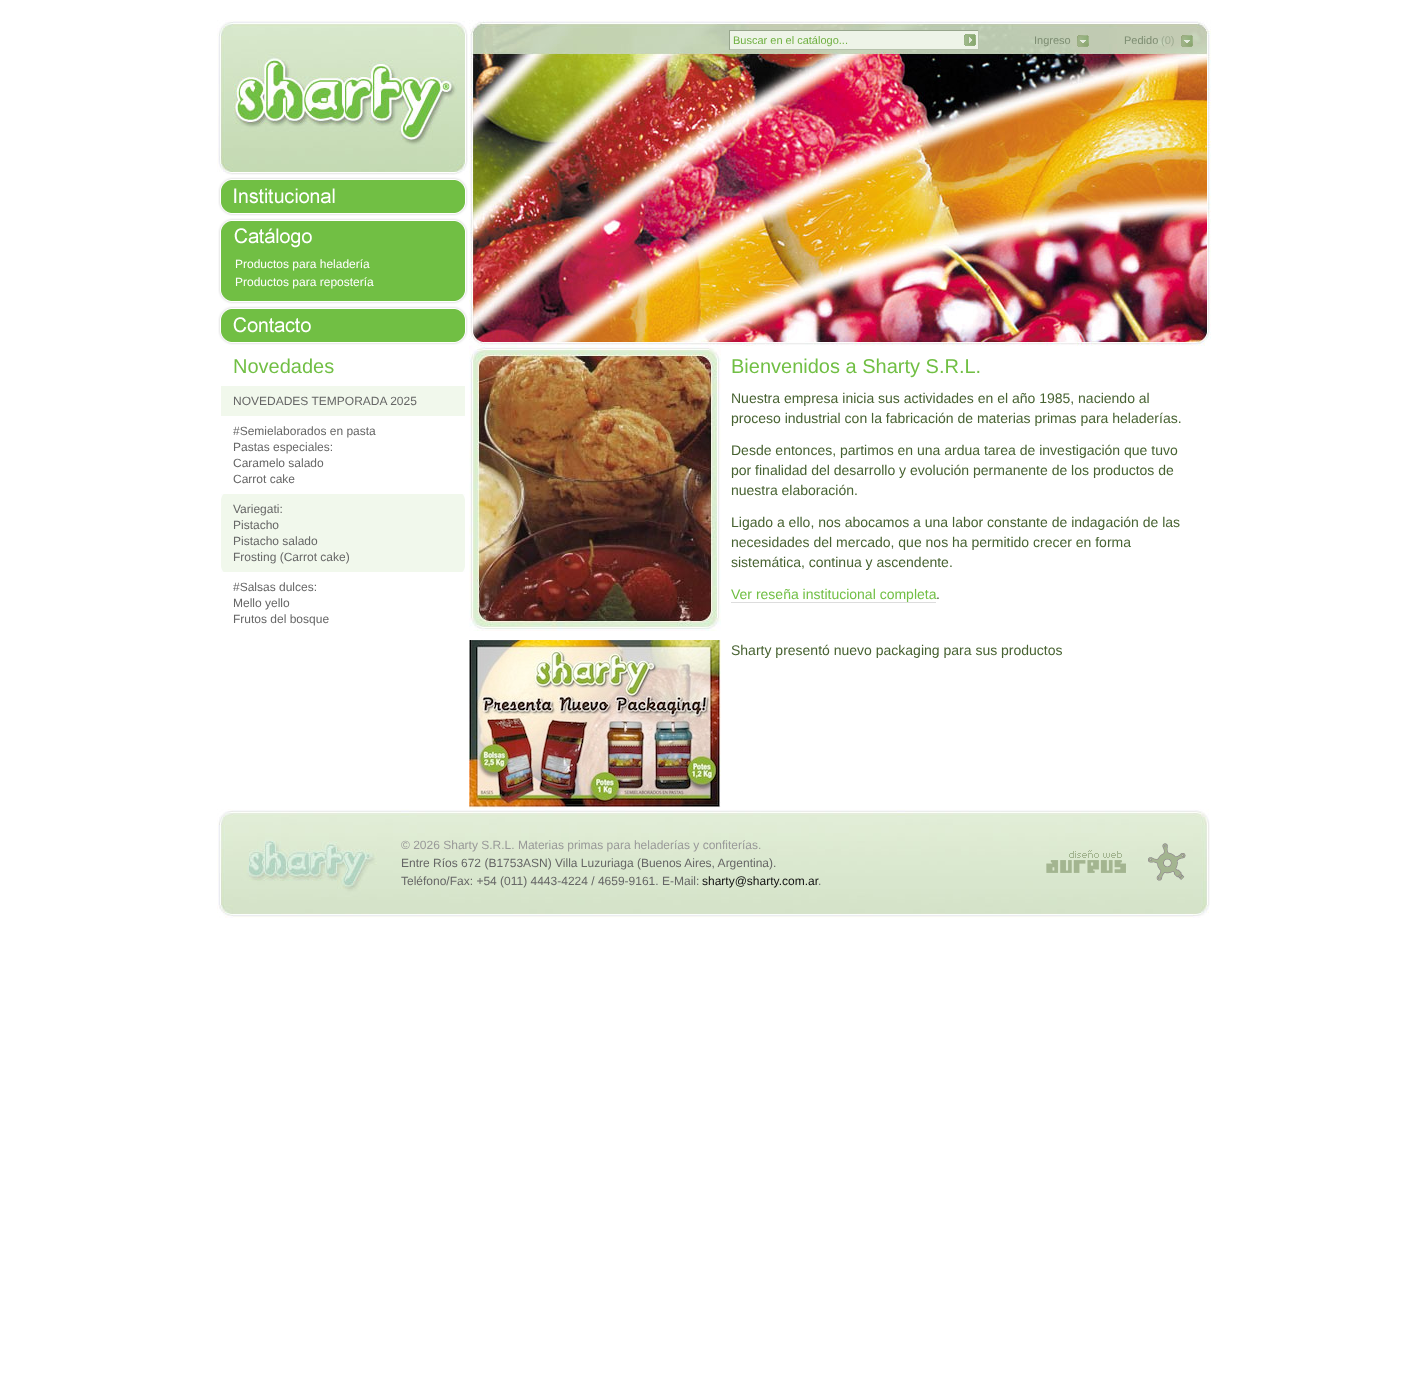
<!DOCTYPE html>
<meta charset="utf-8">
<style>body { margin: 0 } canvas { display: block }</style>
<canvas id="canvas" width="1427" height="1391"></canvas>
<img id="img1" src="img_01.png" hidden>
<img id="img2" src="img_02.png" hidden>
<img id="img3" src="img_03.png" hidden>
<img id="img4" src="img_04.png" hidden>
<img id="img5" src="img_05.png" hidden>
<img id="img6" src="img_06.png" hidden>
<img id="img7" src="img_07.png" hidden>
<img id="img8" src="img_08.png" hidden>
<img id="img9" src="img_09.png" hidden>
<img id="img10" src="img_10.png" hidden>
<img id="img11" src="img_11.png" hidden>
<img id="img12" src="img_12.png" hidden>
<img id="img13" src="img_13.png" hidden>
<script>
window.onload = function () {
	const canvas = document.getElementById("canvas");
	const ctx = canvas.getContext("2d");
	ctx.miterLimit = 4;
	ctx.fontKerning = "normal";
	function txt(s, x, y) {
		ctx.fillText(s, x, y);
	}
	function fill(x, y, w, h) {
		ctx.fillRect(x, y, w, h);
	}
	function img(id, x, y, w, h) {
		ctx.drawImage(document.getElementById(id), x, y, w, h);
	}

	ctx.fillStyle = "#FFFFFF";
	fill(0, 0, 1427, 1391);
	img("img1", 469, 20, 742, 326);
	ctx.fillStyle = "#EEF4E8";
	fill(730, 31, 248, 18);
	ctx.fillStyle = "#97A58C";
	fill(729, 30, 250, 1);
	ctx.fillStyle = "#B6C2AC";
	fill(978, 30, 1, 20);
	fill(729, 49, 250, 1);
	ctx.fillStyle = "#97A58C";
	fill(729, 30, 1, 20);
	img("img2", 964, 34, 12, 12);
	img("img3", 1077, 35, 12, 12);
	img("img3", 1181, 35, 12, 12);
	img("img4", 217, 20, 251, 155);
	img("img5", 218, 177, 250, 39);
	img("img6", 218, 218, 250, 86);
	img("img7", 218, 306, 250, 39);
	ctx.fillStyle = "#F1F8EC";
	fill(221, 386, 244, 30);
	img("img8", 221, 494, 244, 78);
	img("img9", 469, 346, 252, 285);
	ctx.fillStyle = "#DDDDDD";
	fill(731, 602, 205, 1);
	img("img10", 469, 640, 252, 169);
	img("img11", 217, 809, 993, 109);
	img("img12", 1046, 850, 80, 23);
	img("img13", 1148, 843, 38, 38);
	ctx.font = "11px Liberation Sans";
	ctx.fillStyle = "#70B042";
	txt("Buscar en el catálogo...", 733, 44);
	ctx.fillStyle = "#7D8D72";
	txt("Ingreso", 1034, 44);
	txt("Pedido", 1124, 44);
	ctx.fillStyle = "#9EAC92";
	txt("(0)", 1161, 44);
	ctx.font = "12px Liberation Sans";
	ctx.fillStyle = "#FFFFFF";
	txt("Productos para heladería", 235, 268);
	txt("Productos para repostería", 235, 286);
	ctx.font = "20px Liberation Sans";
	ctx.fillStyle = "#71BF44";
	txt("Novedades", 233, 373);
	ctx.font = "12px Liberation Sans";
	ctx.fillStyle = "#666666";
	txt("NOVEDADES TEMPORADA 2025", 233, 405);
	txt("#Semielaborados en pasta", 233, 435);
	txt("Pastas especiales:", 233, 451);
	txt("Caramelo salado", 233, 467);
	txt("Carrot cake", 233, 483);
	txt("Variegati:", 233, 513);
	txt("Pistacho", 233, 529);
	txt("Pistacho salado", 233, 545);
	txt("Frosting (Carrot cake)", 233, 561);
	txt("#Salsas dulces:", 233, 591);
	txt("Mello yello", 233, 607);
	txt("Frutos del bosque", 233, 623);
	ctx.font = "20px Liberation Sans";
	ctx.fillStyle = "#71BF44";
	txt("Bienvenidos a Sharty S.R.L.", 731, 373);
	ctx.font = "14px Liberation Sans";
	ctx.fillStyle = "#476231";
	txt("Nuestra empresa inicia sus actividades en el año 1985, naciendo al", 731, 403);
	txt("proceso industrial con la fabricación de materias primas para heladerías.", 731, 423);
	txt("Desde entonces, partimos en una ardua tarea de investigación que tuvo", 731, 455);
	txt("por finalidad del desarrollo y evolución permanente de los productos de", 731, 475);
	txt("nuestra elaboración.", 731, 495);
	txt("Ligado a ello, nos abocamos a una labor constante de indagación de las", 731, 527);
	txt("necesidades del mercado, que nos ha permitido crecer en forma", 731, 547);
	txt("sistemática, continua y ascendente.", 731, 567);
	ctx.fillStyle = "#71BF44";
	txt("Ver reseña institucional completa", 731, 599);
	ctx.fillStyle = "#476231";
	txt(".", 936, 599);
	txt("Sharty presentó nuevo packaging para sus productos", 731, 655);
	ctx.font = "12px Liberation Sans";
	ctx.fillStyle = "#999999";
	txt("© 2026 Sharty S.R.L. Materias primas para heladerías y confiterías.", 401, 849);
	ctx.fillStyle = "#666666";
	txt("Entre Ríos 672 (B1753ASN) Villa Luzuriaga (Buenos Aires, Argentina).", 401, 867);
	txt("Teléfono/Fax: +54 (011) 4443-4224 / 4659-9161. E-Mail:", 401, 885);
	ctx.fillStyle = "#111111";
	txt("sharty@sharty.com.ar", 702, 885);
	ctx.fillStyle = "#666666";
	txt(".", 818, 885);
};
</script>
